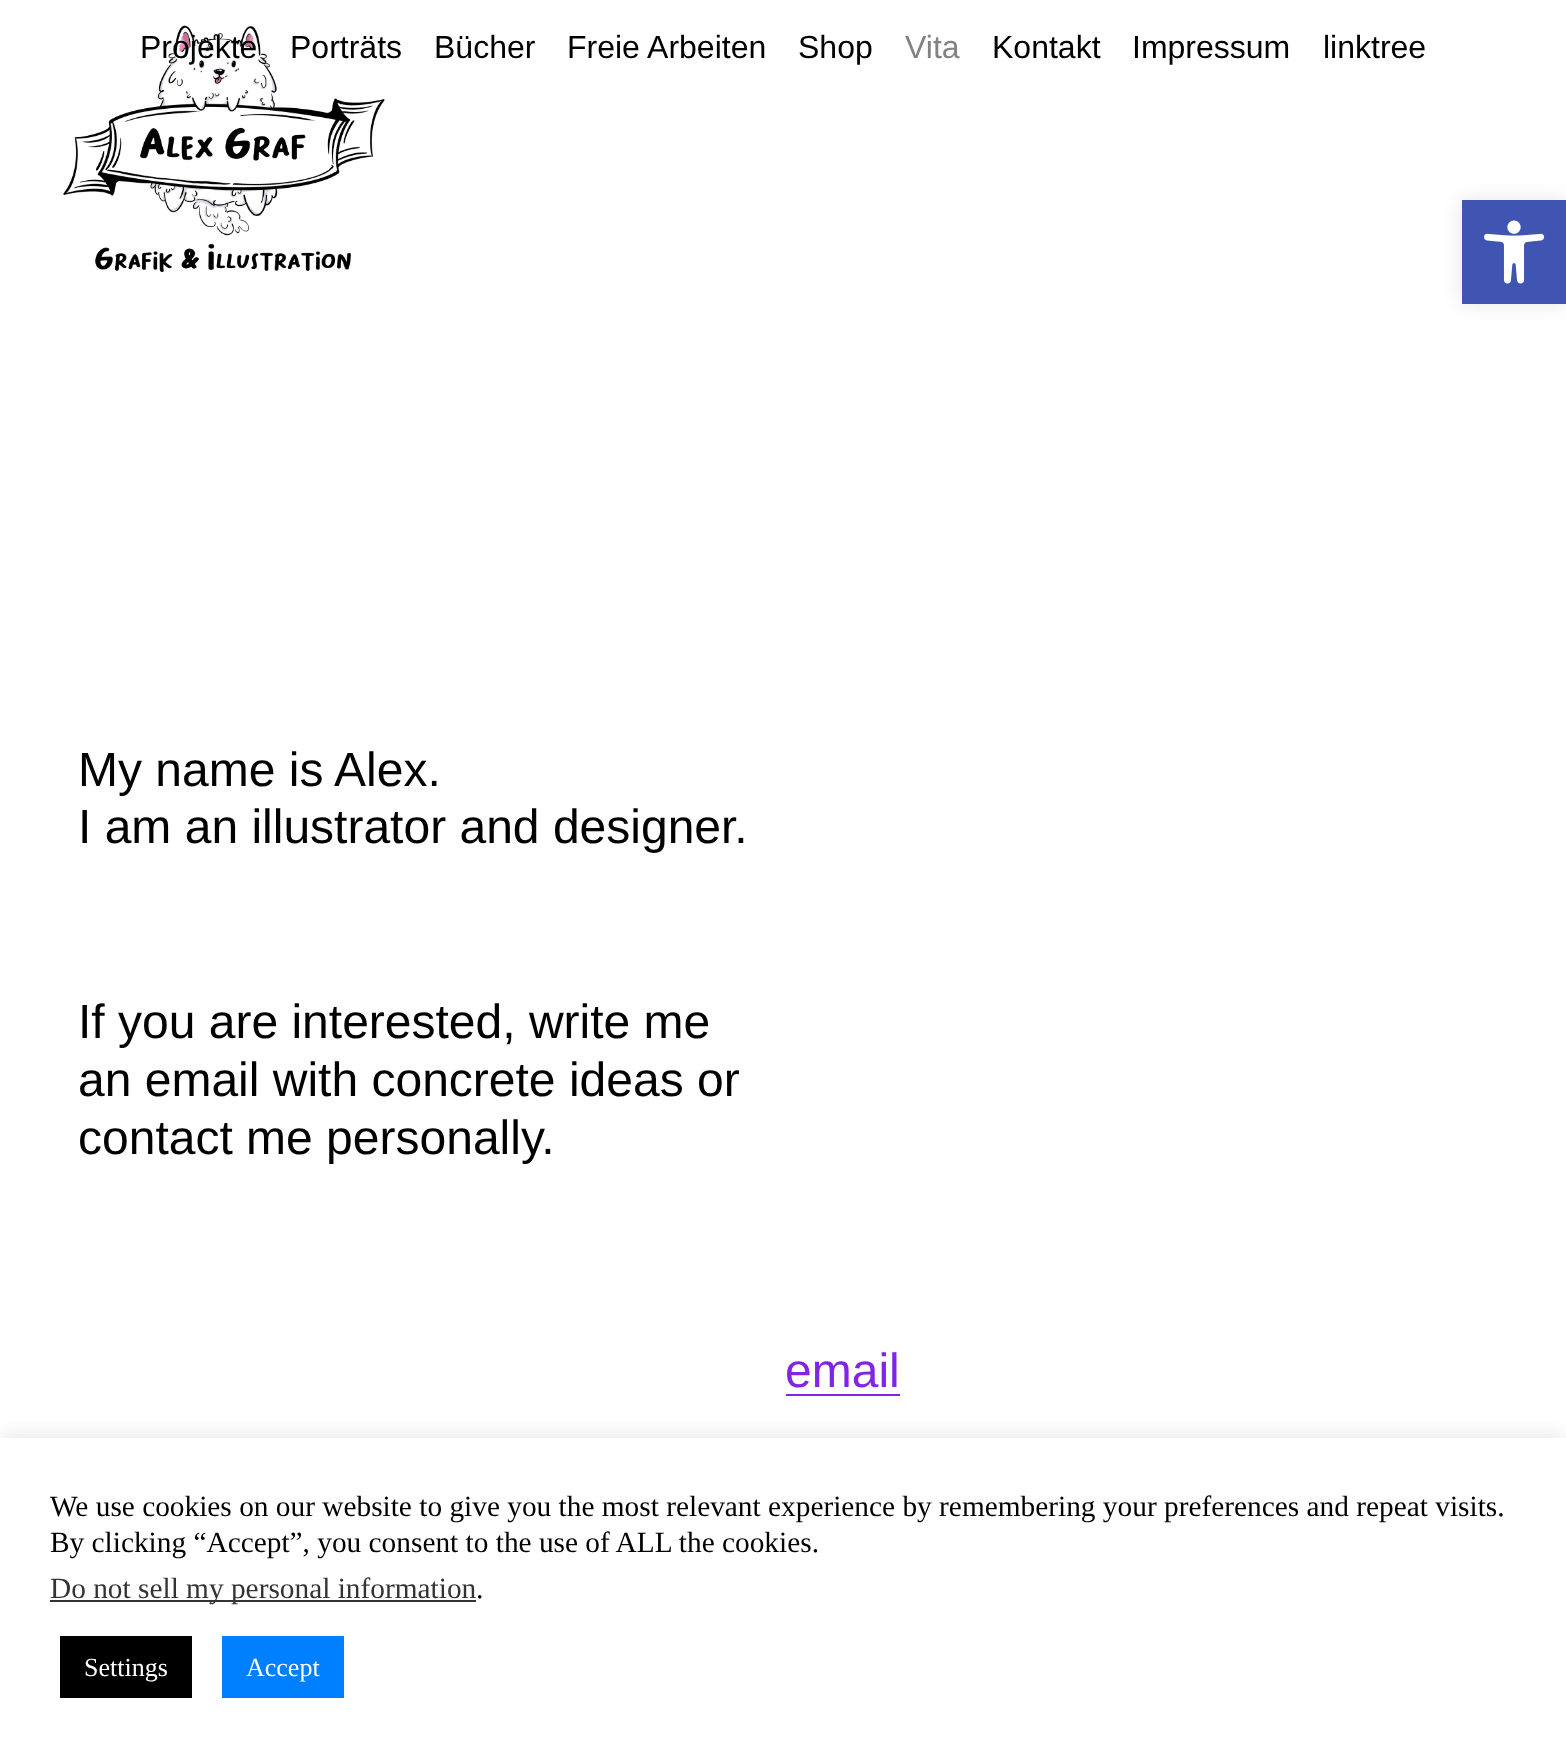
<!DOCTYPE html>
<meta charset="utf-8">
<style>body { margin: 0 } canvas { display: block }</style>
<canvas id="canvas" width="1566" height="1758"></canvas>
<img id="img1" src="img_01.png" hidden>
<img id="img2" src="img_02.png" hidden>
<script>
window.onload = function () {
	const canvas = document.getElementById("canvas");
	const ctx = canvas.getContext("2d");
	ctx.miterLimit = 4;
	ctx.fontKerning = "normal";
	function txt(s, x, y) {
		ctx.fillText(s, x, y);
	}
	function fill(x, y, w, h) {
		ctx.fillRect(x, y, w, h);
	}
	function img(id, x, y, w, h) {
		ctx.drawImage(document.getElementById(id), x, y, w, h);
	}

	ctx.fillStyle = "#FFFFFF";
	fill(0, 0, 1566, 1758);
	img("img1", 63, 25, 322, 247);
	ctx.fillStyle = "rgba(0, 0, 0, 0.1)";
	ctx.filter = "blur(10px)";
	ctx.beginPath();
	ctx.rect(1462, 200, 104, 104);
	ctx.fill();
	ctx.filter = "none";
	ctx.fillStyle = "#4054B2";
	fill(1462, 200, 104, 104);
	img("img2", 1484, 220, 61, 64);
	ctx.fillStyle = "#8224E3";
	fill(786, 1394, 114, 2);
	ctx.save();
	ctx.beginPath();
	ctx.rect(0, 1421, 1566, 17);
	ctx.clip();
	ctx.fillStyle = "rgba(172, 171, 171, 0.3)";
	ctx.filter = "blur(10px)";
	ctx.beginPath();
	ctx.rect(0, 1436, 1566, 320);
	ctx.fill();
	ctx.filter = "none";
	ctx.restore();
	ctx.fillStyle = "#333333";
	fill(50, 1600, 426, 2);
	ctx.fillStyle = "#000000";
	fill(60, 1636, 132, 62);
	ctx.fillStyle = "#007FFF";
	fill(222, 1636, 122, 62);
	ctx.font = "32px Liberation Sans";
	ctx.fillStyle = "#000000";
	txt("Projekte", 140, 58);
	txt("Porträts", 290, 58);
	txt("Bücher", 434, 58);
	txt("Freie Arbeiten", 567, 58);
	txt("Shop", 798, 58);
	ctx.fillStyle = "#828282";
	txt("Vita", 905, 58);
	ctx.fillStyle = "#000000";
	txt("Kontakt", 992, 58);
	txt("Impressum", 1132, 58);
	txt("linktree", 1323, 58);
	ctx.font = "48px Liberation Sans";
	txt("My name is Alex.", 78, 786);
	txt("I am an illustrator and designer.", 78, 843);
	txt("If you are interested, write me", 78, 1038);
	txt("an email with concrete ideas or", 78, 1096);
	txt("contact me personally.", 78, 1154);
	ctx.fillStyle = "#8224E3";
	txt("email", 785, 1387);
	ctx.font = "29.35px Liberation Serif";
	ctx.fillStyle = "#000000";
	txt("We use cookies on our website to give you the most relevant experience by remembering your preferences and repeat visits.", 50, 1516);
	txt("By clicking “Accept”, you consent to the use of ALL the cookies.", 50, 1552);
	ctx.fillStyle = "#333333";
	txt("Do not sell my personal information", 50, 1598);
	ctx.fillStyle = "#000000";
	txt(".", 476, 1598);
	ctx.font = "26px Liberation Serif";
	ctx.fillStyle = "#FFFFFF";
	txt("Settings", 84, 1676);
	txt("Accept", 246, 1676);
};
</script>
